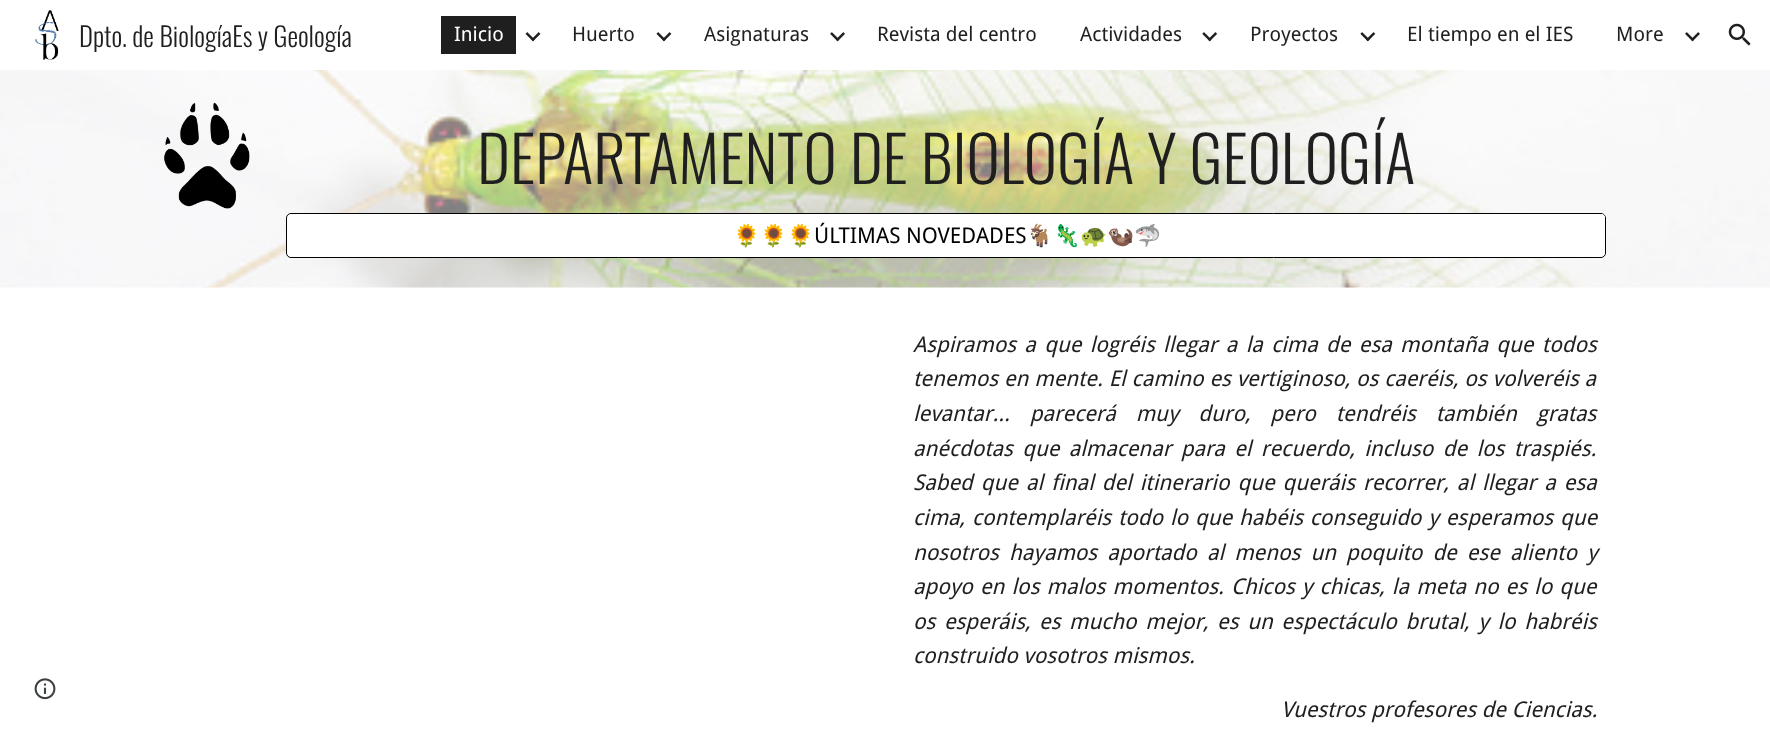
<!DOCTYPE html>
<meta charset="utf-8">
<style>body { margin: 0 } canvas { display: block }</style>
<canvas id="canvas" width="1770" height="731"></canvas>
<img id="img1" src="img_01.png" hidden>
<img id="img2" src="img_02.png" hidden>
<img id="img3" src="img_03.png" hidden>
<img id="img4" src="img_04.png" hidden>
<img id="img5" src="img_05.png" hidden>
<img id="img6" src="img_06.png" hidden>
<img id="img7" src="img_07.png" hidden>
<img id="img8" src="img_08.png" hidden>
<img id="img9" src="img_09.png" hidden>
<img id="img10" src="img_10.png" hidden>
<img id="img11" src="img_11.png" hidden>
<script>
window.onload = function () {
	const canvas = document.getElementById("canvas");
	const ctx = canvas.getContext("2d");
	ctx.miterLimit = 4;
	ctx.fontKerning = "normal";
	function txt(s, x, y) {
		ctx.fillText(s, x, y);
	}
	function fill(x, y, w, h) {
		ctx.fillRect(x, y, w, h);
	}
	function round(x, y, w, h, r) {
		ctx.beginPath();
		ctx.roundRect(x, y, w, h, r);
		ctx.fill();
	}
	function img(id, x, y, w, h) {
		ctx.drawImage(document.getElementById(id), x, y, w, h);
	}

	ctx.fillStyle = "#FFFFFF";
	fill(0, 0, 1770, 731);
	img("img1", 35, 10, 24, 50);
	ctx.fillStyle = "#1F1F1F";
	fill(441, 16, 75, 38);
	img("img2", 525, 32, 16, 10);
	img("img3", 656, 32, 16, 10);
	img("img4", 830, 32, 15, 10);
	img("img5", 1202, 32, 16, 10);
	img("img6", 1360, 32, 16, 10);
	img("img7", 1685, 32, 15, 10);
	img("img8", 1728, 23, 23, 23);
	img("img9", 34, 678, 22, 22);
	img("img10", 0, 70, 1770, 218);
	img("img11", 164, 102, 86, 107);
	ctx.fillStyle = "#FFFFFF";
	ctx.beginPath();
	ctx.roundRect(286.5, 213.5, 1319, 44, 4.5);
	ctx.fill();
	ctx.strokeStyle = "#000000";
	ctx.stroke();
	round(288, 214, 1317, 42, 4);
	ctx.font = "300 26.75px Oswald";
	ctx.fillStyle = "#1F1F1F";
	txt("Dpto. de BiologíaEs y Geología", 79, 47);
	ctx.font = "20px Droid Sans";
	ctx.fillStyle = "#FFFFFF";
	txt("Inicio", 454, 41);
	ctx.fillStyle = "#1F1F1F";
	txt("Huerto", 572, 41);
	txt("Asignaturas", 704, 41);
	txt("Revista del centro", 877, 41);
	txt("Actividades", 1080, 41);
	txt("Proyectos", 1250, 41);
	txt("El tiempo en el IES", 1407, 41);
	txt("More", 1616, 41);
	ctx.font = "300 63.3px Oswald";
	txt("DEPARTAMENTO DE BIOLOGÍA Y GEOLOGÍA", 477, 184);
	ctx.font = "21.7px Noto Color Emoji";
	ctx.fillStyle = "#000000";
	txt("🌻🌻🌻", 733, 243);
	ctx.font = "21.7px Droid Sans";
	txt("ÚLTIMAS NOVEDADES", 814, 243);
	ctx.font = "21.7px Noto Color Emoji";
	txt("🐐🦎🐢🦦🦈", 1026, 243);
	ctx.wordSpacing = "2.75px";
	ctx.font = "italic 21.7px Droid Sans";
	ctx.fillStyle = "#1F1F1F";
	txt("Aspiramos a que logréis llegar a la cima de esa montaña que todos", 913, 352);
	ctx.wordSpacing = "0.25px";
	txt("tenemos en mente. El camino es vertiginoso, os caeréis, os volveréis a", 913, 386);
	ctx.wordSpacing = "14.25px";
	txt("levantar... parecerá muy duro, pero tendréis también gratas", 913, 421);
	ctx.wordSpacing = "3.75px";
	txt("anécdotas que almacenar para el recuerdo, incluso de los traspiés.", 913, 456);
	ctx.wordSpacing = "2.4px";
	txt("Sabed que al final del itinerario que queráis recorrer, al llegar a esa", 913, 490);
	ctx.wordSpacing = "1.25px";
	txt("cima, contemplaréis todo lo que habéis conseguido y esperamos que", 913, 525);
	ctx.wordSpacing = "4.5px";
	txt("nosotros hayamos aportado al menos un poquito de ese aliento y", 913, 560);
	ctx.wordSpacing = "1.5px";
	txt("apoyo en los malos momentos. Chicos y chicas, la meta no es lo que", 913, 594);
	ctx.wordSpacing = "3px";
	txt("os esperáis, es mucho mejor, es un espectáculo brutal, y lo habréis", 913, 629);
	ctx.wordSpacing = "0px";
	txt("construido vosotros mismos.", 913, 663);
	txt("Vuestros profesores de Ciencias.", 1281, 717);
};
</script>
